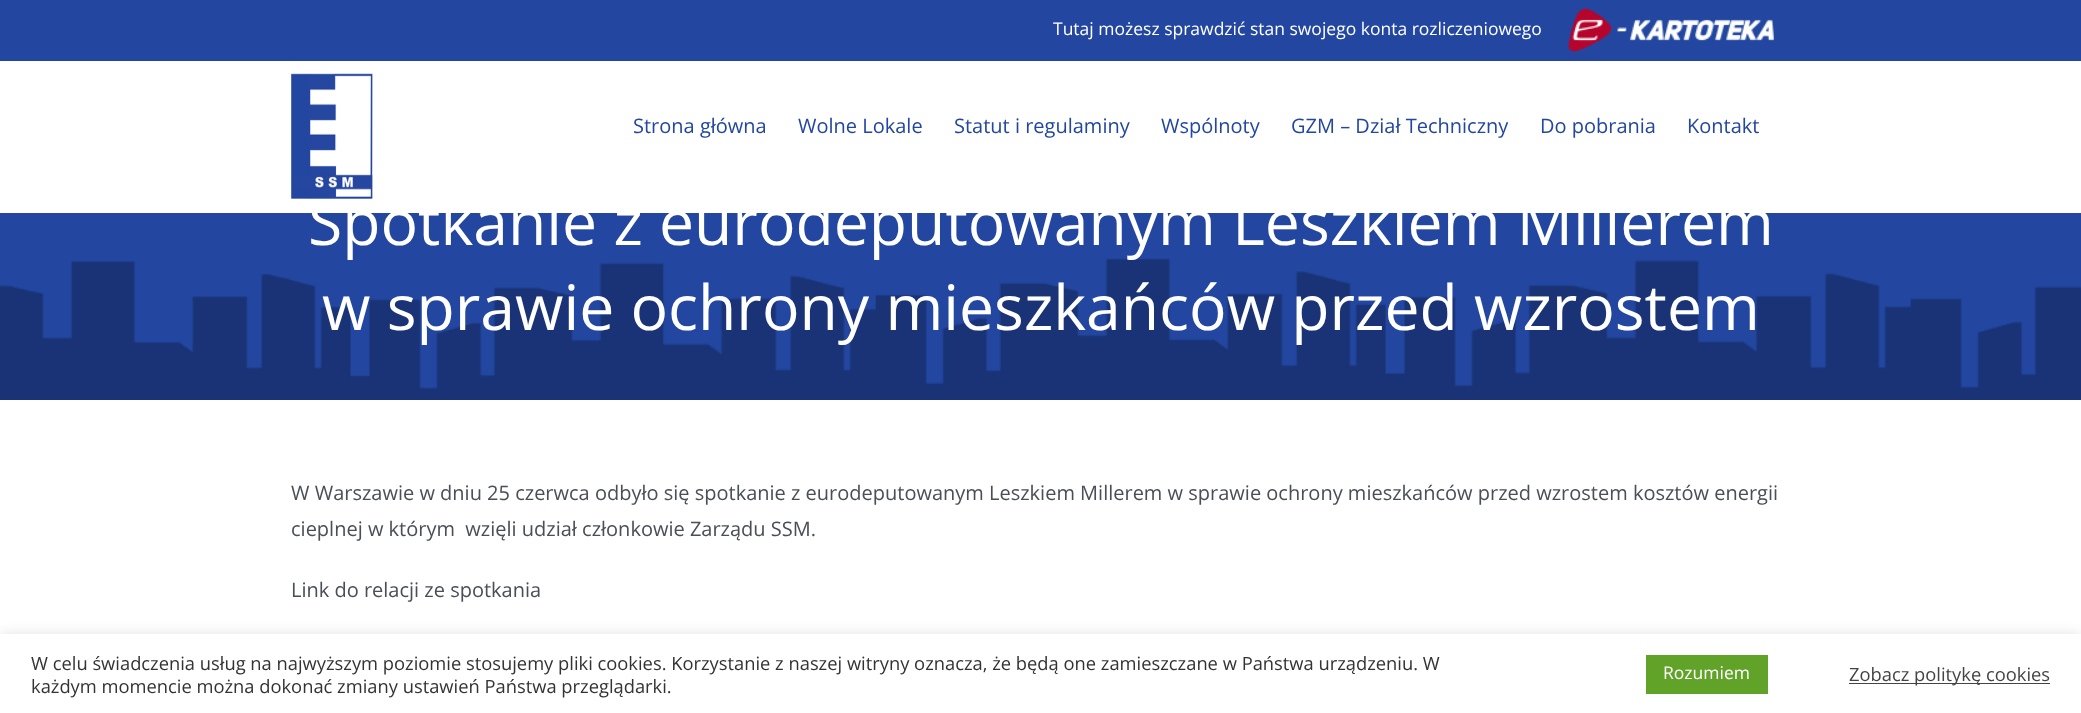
<!DOCTYPE html>
<meta charset="utf-8">
<style>body { margin: 0 } canvas { display: block }</style>
<canvas id="canvas" width="2081" height="713"></canvas>
<img id="img1" src="img_01.png" hidden>
<img id="img2" src="img_03.png" hidden>
<img id="img3" src="img_02.png" hidden>
<script>
window.onload = function () {
	const canvas = document.getElementById("canvas");
	const ctx = canvas.getContext("2d");
	ctx.miterLimit = 4;
	ctx.fontKerning = "normal";
	function txt(s, x, y) {
		ctx.fillText(s, x, y);
	}
	function fill(x, y, w, h) {
		ctx.fillRect(x, y, w, h);
	}
	function img(id, x, y, w, h) {
		ctx.drawImage(document.getElementById(id), x, y, w, h);
	}

	ctx.fillStyle = "#FFFFFF";
	fill(0, 0, 2081, 713);
	ctx.fillStyle = "#2347A0";
	fill(0, 0, 2081, 61);
	img("img1", 1568, 8, 206, 44);
	fill(0, 213, 2081, 176);
	img("img2", 0, 258, 2081, 142);
	ctx.fillStyle = "rgba(172, 171, 171, 0.3)";
	ctx.filter = "blur(6px)";
	ctx.beginPath();
	ctx.rect(0, 633, 2081, 80);
	ctx.fill();
	ctx.filter = "none";
	ctx.fillStyle = "#FFFFFF";
	fill(0, 634, 2081, 79);
	ctx.fillStyle = "#61A229";
	fill(1646, 655, 122, 39);
	ctx.fillStyle = "#444444";
	fill(1849, 683, 201, 1);
	ctx.font = "17.5px Open Sans";
	ctx.fillStyle = "#FFFFFF";
	txt("Tutaj możesz sprawdzić stan swojego konta rozliczeniowego", 1053, 35);
	ctx.font = "20px Open Sans";
	ctx.fillStyle = "#2347A0";
	txt("Strona główna", 633, 133);
	txt("Wolne Lokale", 798, 133);
	txt("Statut i regulaminy", 954, 133);
	txt("Wspólnoty", 1161, 133);
	txt("GZM – Dział Techniczny", 1291, 133);
	txt("Do pobrania", 1540, 133);
	txt("Kontakt", 1687, 133);
	ctx.font = "62.5px Open Sans";
	ctx.fillStyle = "#FFFFFF";
	txt("Spotkanie z eurodeputowanym Leszkiem Millerem", 308, 245);
	img("img3", 291, 73, 82, 126);
	txt("w sprawie ochrony mieszkańców przed wzrostem", 322, 330);
	ctx.font = "20px Open Sans";
	ctx.fillStyle = "#4A4E57";
	txt("W Warszawie w dniu 25 czerwca odbyło się spotkanie z eurodeputowanym Leszkiem Millerem w sprawie ochrony mieszkańców przed wzrostem kosztów energii", 291, 500);
	txt("cieplnej w którym  wzięli udział członkowie Zarządu SSM.", 291, 536);
	txt("Link do relacji ze spotkania", 291, 597);
	ctx.font = "18.33px Open Sans";
	ctx.fillStyle = "#333333";
	txt("W celu świadczenia usług na najwyższym poziomie stosujemy pliki cookies. Korzystanie z naszej witryny oznacza, że będą one zamieszczane w Państwa urządzeniu. W", 31, 670);
	txt("każdym momencie można dokonać zmiany ustawień Państwa przeglądarki.", 31, 693);
	ctx.font = "17.5px Open Sans";
	ctx.fillStyle = "#FFFFFF";
	txt("Rozumiem", 1663, 679);
	ctx.font = "18.33px Open Sans";
	ctx.fillStyle = "#444444";
	txt("Zobacz politykę cookies", 1849, 681);
};
</script>
